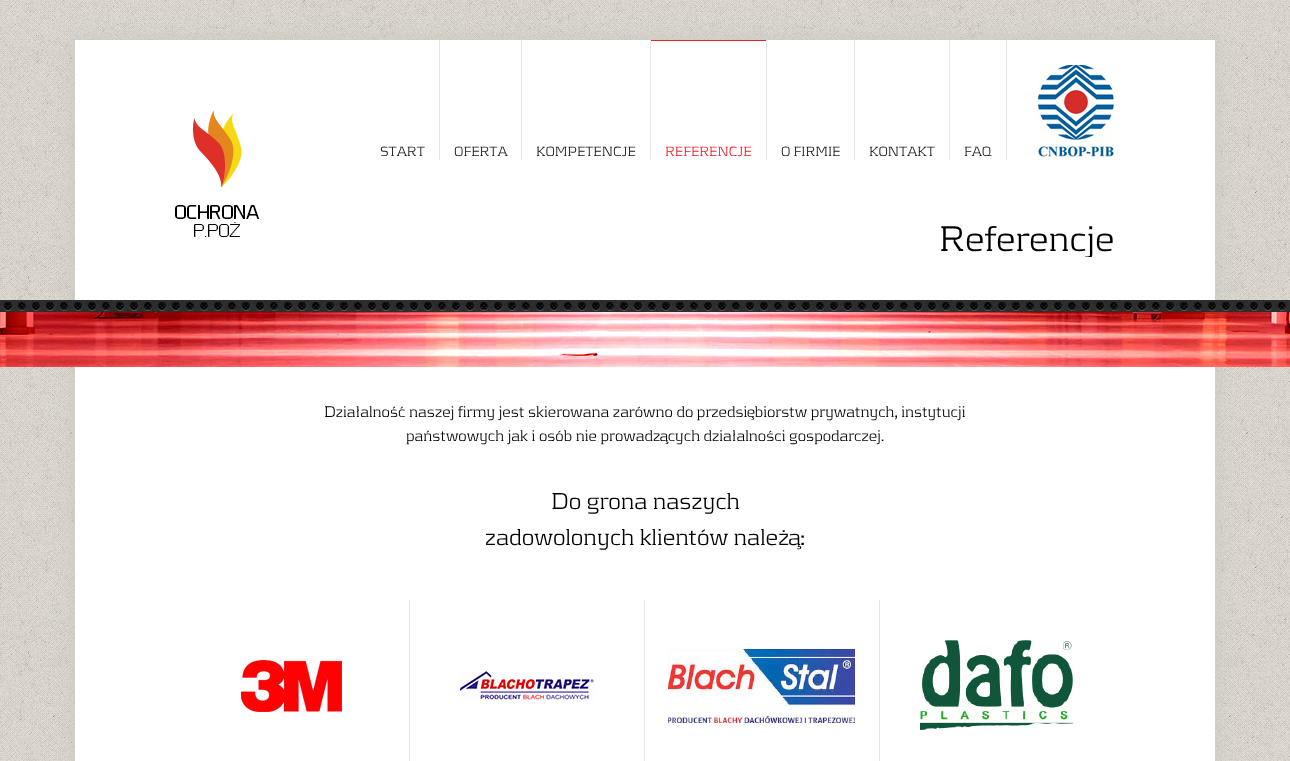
<!DOCTYPE html>
<meta charset="utf-8">
<style>body { margin: 0 } canvas { display: block }</style>
<canvas id="canvas" width="1290" height="761"></canvas>
<img id="img1" src="img_01.png" hidden>
<img id="img2" src="img_02.png" hidden>
<img id="img3" src="img_03.png" hidden>
<img id="img4" src="img_04.png" hidden>
<img id="img5" src="img_05.png" hidden>
<img id="img6" src="img_06.png" hidden>
<img id="img7" src="img_07.png" hidden>
<img id="img8" src="img_08.png" hidden>
<script>
window.onload = function () {
	const canvas = document.getElementById("canvas");
	const ctx = canvas.getContext("2d");
	ctx.miterLimit = 4;
	ctx.fontKerning = "normal";
	function txt(s, x, y) {
		ctx.fillText(s, x, y);
	}
	function fill(x, y, w, h) {
		ctx.fillRect(x, y, w, h);
	}
	function img(id, x, y, w, h) {
		ctx.drawImage(document.getElementById(id), x, y, w, h);
	}

	ctx.fillStyle = "#FFFFFF";
	fill(0, 0, 1290, 761);
	img("img1", 0, 0, 1290, 761);
	ctx.fillStyle = "#CBC7BE";
	ctx.filter = "blur(10px)";
	ctx.beginPath();
	ctx.rect(75, 40, 1140, 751);
	ctx.fill();
	ctx.filter = "none";
	ctx.fillStyle = "#FFFFFF";
	fill(75, 40, 1140, 721);
	img("img2", 175, 110, 85, 127);
	ctx.fillStyle = "#E7E7E7";
	fill(439, 40, 1, 120);
	fill(521, 40, 1, 120);
	fill(650, 40, 1, 120);
	fill(766, 40, 1, 120);
	ctx.fillStyle = "#ED1D24";
	fill(651, 40, 115, 1);
	ctx.fillStyle = "#E7E7E7";
	fill(854, 40, 1, 120);
	fill(949, 40, 1, 120);
	fill(1006, 40, 1, 120);
	img("img3", 1038, 65, 76, 93);
	fill(409, 600, 1, 161);
	img("img4", 241, 660, 102, 53);
	fill(644, 600, 1, 161);
	img("img5", 460, 671, 135, 30);
	fill(879, 600, 1, 161);
	img("img6", 668, 649, 188, 75);
	img("img7", 920, 640, 154, 91);
	img("img8", 0, 300, 1290, 67);
	ctx.font = "300 14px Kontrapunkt";
	ctx.fillStyle = "#181817";
	txt("START", 380, 156);
	txt("OFERTA", 454, 156);
	txt("KOMPETENCJE", 536, 156);
	ctx.fillStyle = "#ED1D24";
	txt("REFERENCJE", 665, 156);
	ctx.fillStyle = "#181817";
	txt("O FIRMIE", 781, 156);
	txt("KONTAKT", 869, 156);
	txt("FAQ", 964, 156);
	ctx.save();
	ctx.beginPath();
	ctx.rect(175, 40, 940, 217);
	ctx.clip();
	ctx.font = "300 37px Kontrapunkt";
	ctx.fillStyle = "#000000";
	txt("Referencje", 939, 251);
	ctx.restore();
	ctx.font = "300 16px Kontrapunkt";
	ctx.fillStyle = "#000000";
	txt("Działalność naszej firmy jest skierowana zarówno do przedsiębiorstw prywatnych, instytucji", 324, 417);
	txt("państwowych jak i osób nie prowadzących działalności gospodarczej.", 406, 441);
	ctx.font = "300 24px Kontrapunkt";
	txt("Do grona naszych", 551, 509);
	txt("zadowolonych klientów należą:", 485, 545);
};
</script>
